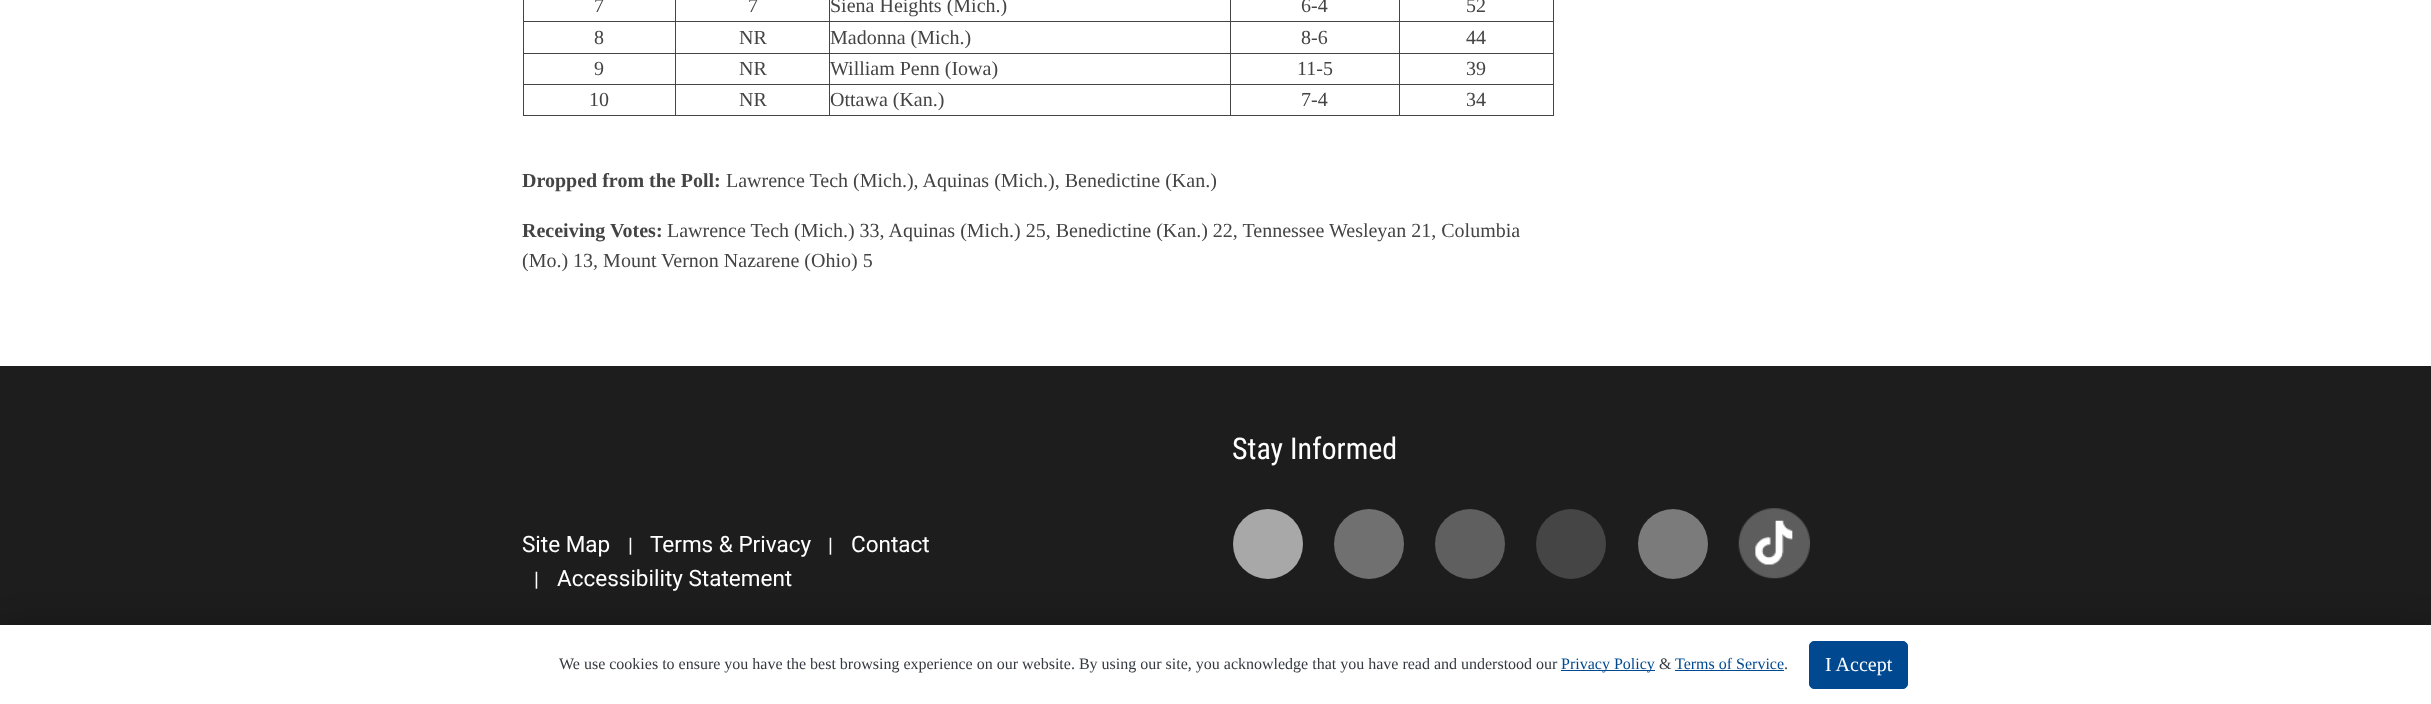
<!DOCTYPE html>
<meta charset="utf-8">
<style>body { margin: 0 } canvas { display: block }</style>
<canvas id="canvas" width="2431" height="704"></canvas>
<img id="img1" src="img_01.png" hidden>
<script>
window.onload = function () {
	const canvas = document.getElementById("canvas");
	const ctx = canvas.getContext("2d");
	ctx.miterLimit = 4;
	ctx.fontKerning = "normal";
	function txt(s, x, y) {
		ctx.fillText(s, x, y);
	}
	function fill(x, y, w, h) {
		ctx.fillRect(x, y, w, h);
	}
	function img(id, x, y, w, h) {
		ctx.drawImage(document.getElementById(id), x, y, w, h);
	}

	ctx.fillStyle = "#FFFFFF";
	fill(0, 0, 2431, 704);
	ctx.fillStyle = "#444444";
	fill(1399, 21, 155, 1);
	fill(1399, 53, 155, 1);
	fill(1399, 84, 155, 1);
	fill(1553, 84, 1, 32);
	fill(1399, 115, 155, 1);
	fill(1399, 84, 1, 32);
	fill(1230, 84, 170, 1);
	fill(1399, 53, 1, 32);
	fill(1230, 53, 170, 1);
	fill(1399, 21, 1, 33);
	fill(1230, 21, 170, 1);
	fill(1230, 115, 170, 1);
	fill(1230, 84, 1, 32);
	fill(829, 84, 402, 1);
	fill(1230, 53, 1, 32);
	fill(829, 53, 402, 1);
	fill(1230, 21, 1, 33);
	fill(829, 21, 402, 1);
	fill(829, 115, 402, 1);
	fill(829, 84, 1, 32);
	fill(675, 84, 155, 1);
	fill(829, 53, 1, 32);
	fill(675, 53, 155, 1);
	fill(829, 21, 1, 33);
	fill(675, 21, 155, 1);
	fill(675, 115, 155, 1);
	fill(675, 84, 1, 32);
	fill(523, 84, 153, 1);
	fill(675, 53, 1, 32);
	fill(523, 53, 153, 1);
	fill(675, 21, 1, 33);
	fill(523, 21, 153, 1);
	fill(675, 0, 1, 23);
	fill(829, 0, 1, 23);
	fill(1230, 0, 1, 23);
	fill(1399, 0, 1, 23);
	fill(523, 115, 153, 1);
	fill(523, 84, 1, 32);
	fill(523, 53, 1, 32);
	fill(523, 0, 1, 54);
	fill(1553, 53, 1, 32);
	fill(1553, 0, 1, 54);
	ctx.fillStyle = "#1D1D1D";
	fill(0, 366, 2431, 259);
	ctx.fillStyle = "#A8A8A8";
	ctx.beginPath();
	ctx.arc(1268, 544, 35, 0, Math.PI * 2);
	ctx.fill();
	ctx.fillStyle = "#707070";
	ctx.beginPath();
	ctx.arc(1369, 544, 35, 0, Math.PI * 2);
	ctx.fill();
	ctx.fillStyle = "#5F5F5F";
	ctx.beginPath();
	ctx.arc(1470, 544, 35, 0, Math.PI * 2);
	ctx.fill();
	ctx.fillStyle = "#454545";
	ctx.beginPath();
	ctx.arc(1571, 544, 35, 0, Math.PI * 2);
	ctx.fill();
	ctx.fillStyle = "#7B7B7B";
	ctx.beginPath();
	ctx.arc(1673, 544, 35, 0, Math.PI * 2);
	ctx.fill();
	img("img1", 1738, 508, 72, 71);
	ctx.fillStyle = "rgba(0, 0, 0, 0.25)";
	ctx.filter = "blur(15px)";
	ctx.beginPath();
	ctx.rect(0, 625, 2431, 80);
	ctx.fill();
	ctx.filter = "none";
	ctx.fillStyle = "#FFFFFF";
	fill(0, 625, 2431, 79);
	ctx.fillStyle = "#004990";
	fill(1561, 670, 94, 1);
	fill(1675, 670, 109, 1);
	ctx.beginPath();
	ctx.roundRect(1809.5, 641.5, 98, 47, 4.5);
	ctx.fill();
	ctx.strokeStyle = "#004990";
	ctx.stroke();
	ctx.font = "20px Liberation Serif";
	ctx.fillStyle = "#444444";
	txt("7", 594, 12);
	txt("7", 748, 12);
	txt("Siena Heights (Mich.)", 830, 12);
	txt("6-4", 1301, 12);
	txt("52", 1466, 12);
	txt("8", 594, 44);
	txt("NR", 739, 44);
	txt("Madonna (Mich.)", 830, 44);
	txt("8-6", 1301, 44);
	txt("44", 1466, 44);
	txt("9", 594, 75);
	txt("NR", 739, 75);
	txt("William Penn (Iowa)", 830, 75);
	txt("11-5", 1297, 75);
	txt("39", 1466, 75);
	txt("10", 589, 106);
	txt("NR", 739, 106);
	txt("Ottawa (Kan.)", 830, 106);
	txt("7-4", 1301, 106);
	txt("34", 1466, 106);
	ctx.font = "bold 20px Liberation Serif";
	txt("Dropped from the Poll:", 522, 187);
	ctx.font = "20px Liberation Serif";
	txt("Lawrence Tech (Mich.), Aquinas (Mich.), Benedictine (Kan.)", 726, 187);
	ctx.font = "bold 20px Liberation Serif";
	txt("Receiving Votes:", 522, 237);
	ctx.font = "20px Liberation Serif";
	txt("Lawrence Tech (Mich.) 33, Aquinas (Mich.) 25, Benedictine (Kan.) 22, Tennessee Wesleyan 21, Columbia", 667, 237);
	txt("(Mo.) 13, Mount Vernon Nazarene (Ohio) 5", 522, 267);
	ctx.font = "30px Roboto Condensed";
	ctx.fillStyle = "#FFFFFF";
	txt("Stay Informed", 1232, 459);
	ctx.font = "22.5px Roboto";
	txt("Site Map", 522, 552);
	ctx.font = "20px Roboto";
	txt("|", 628, 552);
	ctx.font = "22.5px Roboto";
	txt("Terms & Privacy", 650, 552);
	ctx.font = "20px Roboto";
	txt("|", 828, 552);
	ctx.font = "22.5px Roboto";
	txt("Contact", 851, 552);
	ctx.font = "20px Roboto";
	txt("|", 534, 586);
	ctx.font = "22.5px Roboto";
	txt("Accessibility Statement", 557, 586);
	ctx.font = "16px Liberation Serif";
	ctx.fillStyle = "#343A40";
	txt("We use cookies to ensure you have the best browsing experience on our website. By using our site, you acknowledge that you have read and understood our", 559, 669);
	ctx.fillStyle = "#004990";
	txt("Privacy Policy", 1561, 669);
	ctx.fillStyle = "#343A40";
	txt("&", 1659, 669);
	ctx.fillStyle = "#004990";
	txt("Terms of Service", 1675, 669);
	ctx.fillStyle = "#343A40";
	txt(".", 1784, 669);
	ctx.font = "20px Liberation Serif";
	ctx.fillStyle = "#FFFFFF";
	txt("I Accept", 1825, 671);
};
</script>
